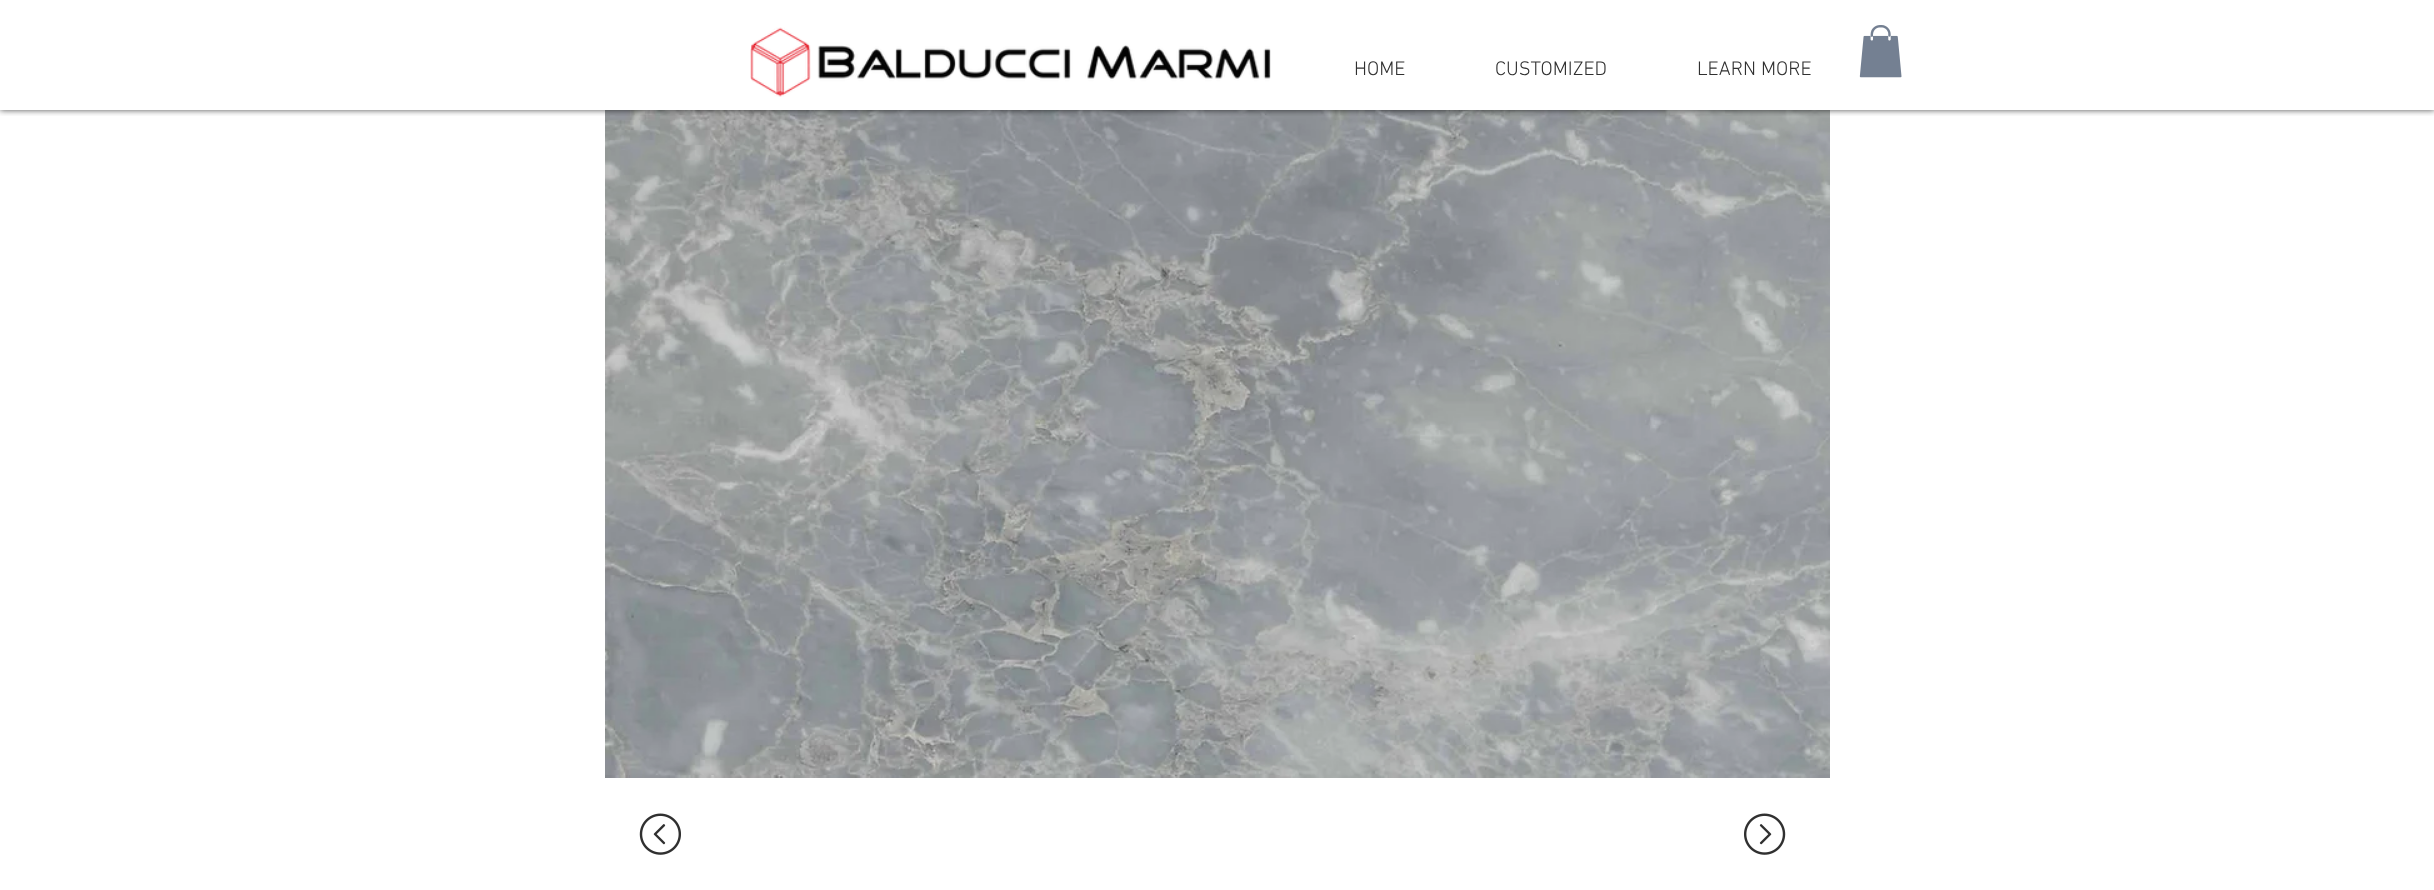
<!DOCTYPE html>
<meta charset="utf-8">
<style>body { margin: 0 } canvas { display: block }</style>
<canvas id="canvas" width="2434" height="890"></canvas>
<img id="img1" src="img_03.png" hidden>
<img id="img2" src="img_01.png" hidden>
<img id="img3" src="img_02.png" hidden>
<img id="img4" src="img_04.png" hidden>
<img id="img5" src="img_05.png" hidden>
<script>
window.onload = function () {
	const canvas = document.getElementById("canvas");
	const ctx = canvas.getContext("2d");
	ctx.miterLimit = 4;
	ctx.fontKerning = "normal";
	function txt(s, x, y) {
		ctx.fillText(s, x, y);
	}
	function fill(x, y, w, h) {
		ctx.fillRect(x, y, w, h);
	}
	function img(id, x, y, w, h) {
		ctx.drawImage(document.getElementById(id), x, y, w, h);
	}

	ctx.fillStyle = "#FFFFFF";
	fill(0, 0, 2434, 890);
	img("img1", 605, 110, 1225, 668);
	ctx.save();
	ctx.beginPath();
	ctx.rect(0, 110, 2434, 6);
	ctx.clip();
	ctx.fillStyle = "rgba(0, 0, 0, 0.7)";
	ctx.filter = "blur(3px)";
	ctx.beginPath();
	ctx.rect(0, 0, 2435, 110);
	ctx.fill();
	ctx.filter = "none";
	ctx.restore();
	img("img2", 750, 27, 521, 70);
	img("img3", 1859, 25, 43, 53);
	img("img4", 639, 813, 42, 42);
	img("img5", 1744, 813, 42, 42);
	ctx.font = "300 20px 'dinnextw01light'";
	ctx.fillStyle = "#303030";
	txt("HOME", 1354, 75);
	txt("CUSTOMIZED", 1495, 75);
	txt("LEARN MORE", 1697, 75);
};
</script>
